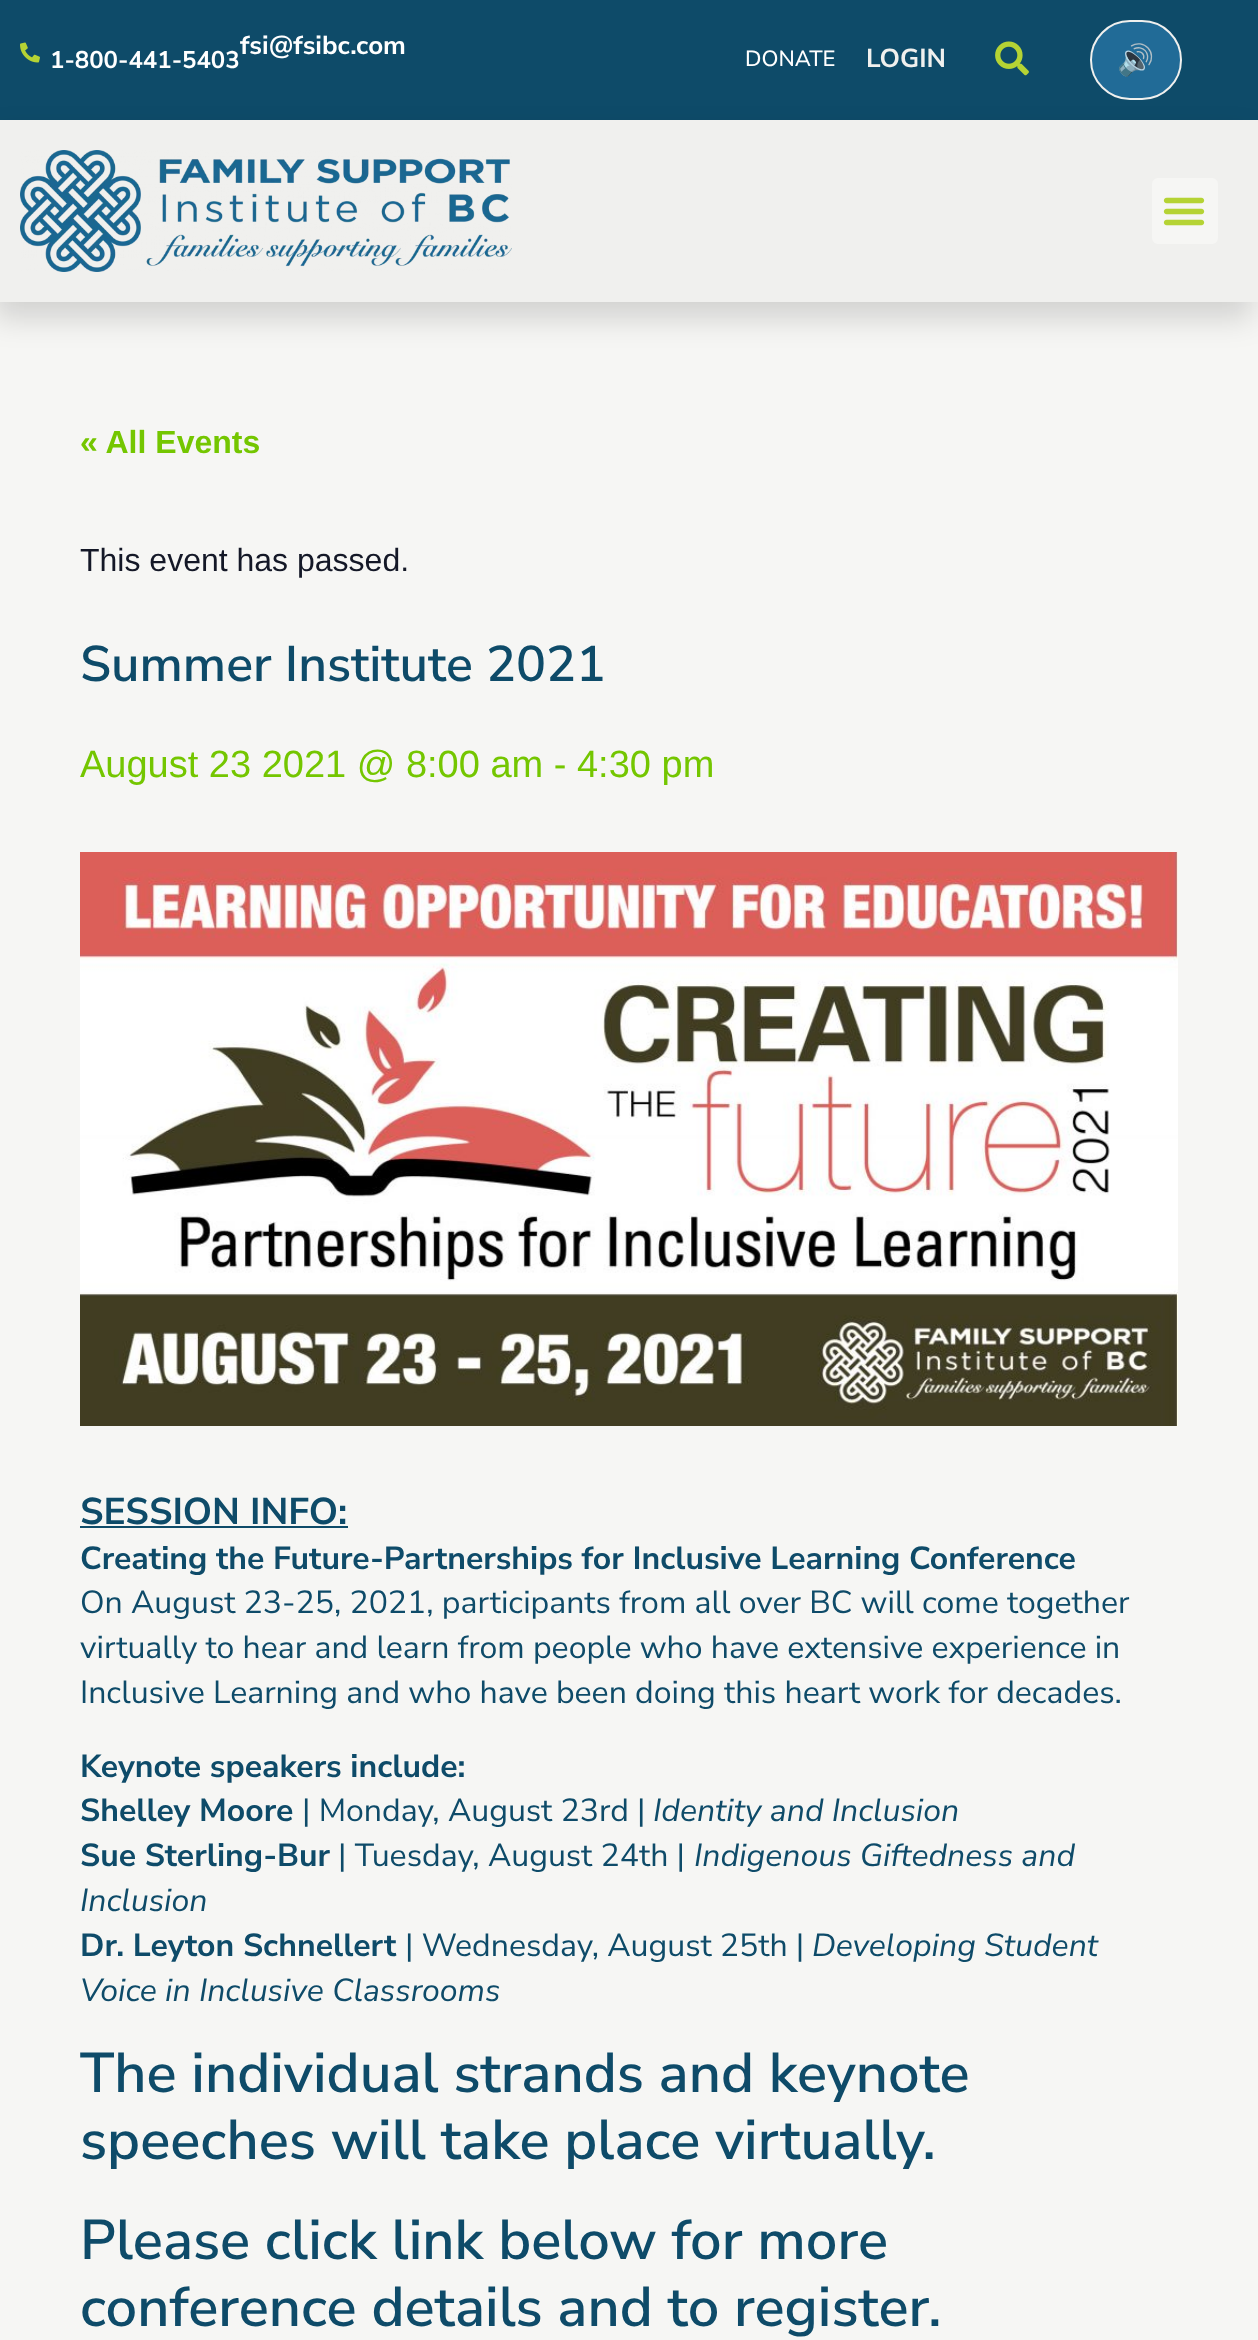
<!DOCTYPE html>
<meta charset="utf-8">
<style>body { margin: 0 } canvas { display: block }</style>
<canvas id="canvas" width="1258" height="2340"></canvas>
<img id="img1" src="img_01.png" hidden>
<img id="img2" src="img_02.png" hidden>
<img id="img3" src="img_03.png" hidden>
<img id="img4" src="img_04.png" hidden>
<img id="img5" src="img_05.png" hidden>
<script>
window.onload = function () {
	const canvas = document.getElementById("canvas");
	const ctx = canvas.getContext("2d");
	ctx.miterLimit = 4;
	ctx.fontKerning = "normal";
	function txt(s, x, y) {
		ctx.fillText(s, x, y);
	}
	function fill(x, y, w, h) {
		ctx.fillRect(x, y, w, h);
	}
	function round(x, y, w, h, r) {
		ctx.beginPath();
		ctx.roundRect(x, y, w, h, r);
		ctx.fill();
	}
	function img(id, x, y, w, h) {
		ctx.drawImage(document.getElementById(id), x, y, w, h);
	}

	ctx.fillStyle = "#F6F6F4";
	fill(0, 0, 1258, 2340);
	ctx.fillStyle = "#0E4B69";
	fill(0, 0, 1258, 120);
	img("img1", 20, 42, 20, 21);
	img("img2", 995, 41, 34, 35);
	ctx.fillStyle = "#216B97";
	ctx.beginPath();
	ctx.roundRect(1091, 21, 90, 78, 39);
	ctx.fill();
	ctx.strokeStyle = "#F0F0EE";
	ctx.lineWidth = 2;
	ctx.stroke();
	ctx.fillStyle = "rgba(0, 0, 0, 0.15)";
	ctx.filter = "blur(15px)";
	ctx.beginPath();
	ctx.rect(-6, 136, 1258, 182);
	ctx.fill();
	ctx.filter = "none";
	ctx.fillStyle = "#F0F0EE";
	fill(0, 120, 1258, 182);
	img("img3", 20, 150, 492, 122);
	ctx.fillStyle = "#F6F6F4";
	round(1152, 178, 66, 66, 6);
	img("img4", 1163, 197, 42, 29);
	img("img5", 80, 852, 1098, 574);
	ctx.fillStyle = "#0E4B69";
	fill(80, 1526, 268, 2);
	ctx.font = "bold 24px Nunito Sans";
	ctx.fillStyle = "#FFFFFF";
	txt("1-800-441-5403", 50, 68);
	ctx.font = "bold 26px Nunito Sans";
	txt("fsi@fsibc.com", 240, 54);
	ctx.font = "500 22px Nunito Sans";
	txt("DONATE", 745, 66);
	ctx.font = "bold 26px Nunito Sans";
	ctx.fillStyle = "#F0F0EE";
	txt("LOGIN", 866, 67);
	ctx.font = "30px Noto Color Emoji";
	ctx.fillStyle = "#FFFFFF";
	txt("🔊", 1117, 70);
	ctx.font = "bold 32px Liberation Sans";
	ctx.fillStyle = "#74C600";
	txt("« All Events", 80, 453);
	ctx.font = "32px Liberation Sans";
	ctx.fillStyle = "#141827";
	txt("This event has passed.", 80, 571);
	ctx.font = "600 50px Nunito Sans";
	ctx.fillStyle = "#0E4B69";
	txt("Summer Institute 2021", 80, 681);
	ctx.font = "38px Liberation Sans";
	ctx.fillStyle = "#74C600";
	txt("August 23 2021 @ 8:00 am - 4:30 pm", 80, 777);
	ctx.font = "bold 37.25px Nunito Sans";
	ctx.fillStyle = "#0E4B69";
	txt("SESSION INFO:", 80, 1524);
	ctx.font = "bold 32px Nunito Sans";
	txt("Creating the Future-Partnerships for Inclusive Learning Conference", 80, 1569);
	ctx.font = "32px Nunito Sans";
	txt("On August 23-25, 2021, participants from all over BC will come together", 80, 1613);
	txt("virtually to hear and learn from people who have extensive experience in", 80, 1658);
	txt("Inclusive Learning and who have been doing this heart work for decades.", 80, 1703);
	ctx.font = "bold 32px Nunito Sans";
	txt("Keynote speakers include:", 80, 1777);
	txt("Shelley Moore", 80, 1821);
	ctx.font = "32px Nunito Sans";
	txt("| Monday, August 23rd |", 302, 1821);
	ctx.font = "italic 32px Nunito Sans";
	txt("Identity and Inclusion", 653, 1821);
	ctx.font = "bold 32px Nunito Sans";
	txt("Sue Sterling-Bur", 80, 1866);
	ctx.font = "32px Nunito Sans";
	txt("| Tuesday, August 24th |", 338, 1866);
	ctx.font = "italic 32px Nunito Sans";
	txt("Indigenous Giftedness and", 694, 1866);
	txt("Inclusion", 80, 1911);
	ctx.font = "bold 32px Nunito Sans";
	txt("Dr. Leyton Schnellert", 80, 1956);
	ctx.font = "32px Nunito Sans";
	txt("| Wednesday, August 25th |", 405, 1956);
	ctx.font = "italic 32px Nunito Sans";
	txt("Developing Student", 812, 1956);
	txt("Voice in Inclusive Classrooms", 80, 2001);
	ctx.font = "600 56px Nunito Sans";
	txt("The individual strands and keynote", 80, 2092);
	txt("speeches will take place virtually.", 80, 2159);
	txt("Please click link below for more", 80, 2259);
	txt("conference details and to register.", 80, 2326);
};
</script>
